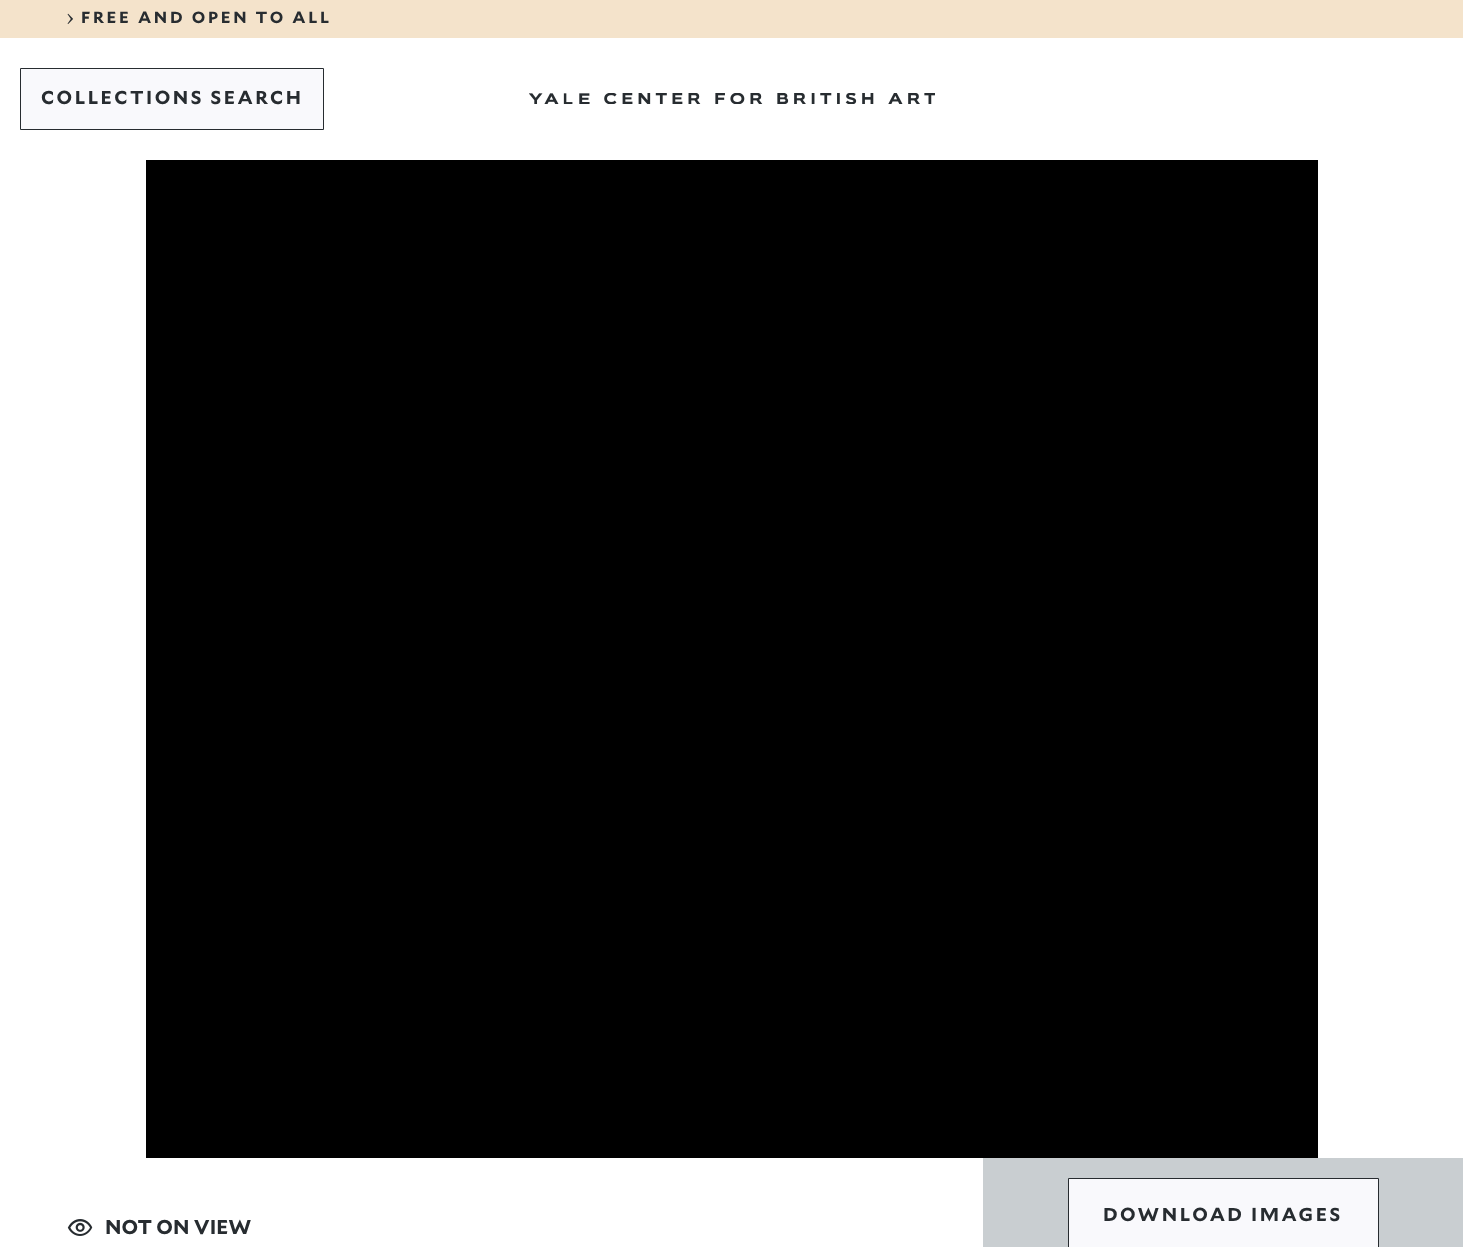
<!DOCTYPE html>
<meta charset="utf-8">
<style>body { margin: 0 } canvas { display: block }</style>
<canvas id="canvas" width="1463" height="1247"></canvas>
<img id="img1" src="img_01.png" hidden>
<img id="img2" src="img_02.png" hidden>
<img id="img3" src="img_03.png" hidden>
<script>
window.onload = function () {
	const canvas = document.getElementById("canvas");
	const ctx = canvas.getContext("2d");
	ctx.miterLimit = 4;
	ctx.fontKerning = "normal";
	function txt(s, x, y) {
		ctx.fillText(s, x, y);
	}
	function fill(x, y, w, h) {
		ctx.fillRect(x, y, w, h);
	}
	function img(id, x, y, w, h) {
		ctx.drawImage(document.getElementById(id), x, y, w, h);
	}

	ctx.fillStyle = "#FFFFFF";
	fill(0, 0, 1463, 1247);
	ctx.fillStyle = "#F4E3CB";
	fill(0, 0, 1463, 38);
	img("img1", 67, 13, 6, 11);
	ctx.fillStyle = "#F9F9FC";
	ctx.beginPath();
	ctx.rect(20.5, 68.5, 303, 61);
	ctx.fill();
	ctx.strokeStyle = "#272C30";
	ctx.stroke();
	img("img2", 529, 93, 406, 11);
	ctx.fillStyle = "#000000";
	fill(146, 160, 1172, 998);
	ctx.fillStyle = "#C9CED1";
	fill(983, 1158, 480, 89);
	ctx.fillStyle = "#F9F9FC";
	ctx.beginPath();
	ctx.rect(1068.5, 1178.5, 310, 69);
	ctx.fill();
	ctx.stroke();
	img("img3", 67, 1219, 26, 17);
	ctx.letterSpacing = "2.75px";
	ctx.font = "bold 16.25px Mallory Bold";
	ctx.fillStyle = "#272C30";
	txt("FREE AND OPEN TO ALL", 81, 23);
	ctx.letterSpacing = "2.5px";
	ctx.font = "bold 18.75px Mallory Bold";
	txt("COLLECTIONS SEARCH", 41, 104);
	txt("DOWNLOAD IMAGES", 1103, 1221);
	ctx.letterSpacing = "0px";
	ctx.font = "bold 20px Mallory Bold";
	txt("NOT ON VIEW", 105, 1234);
};
</script>
